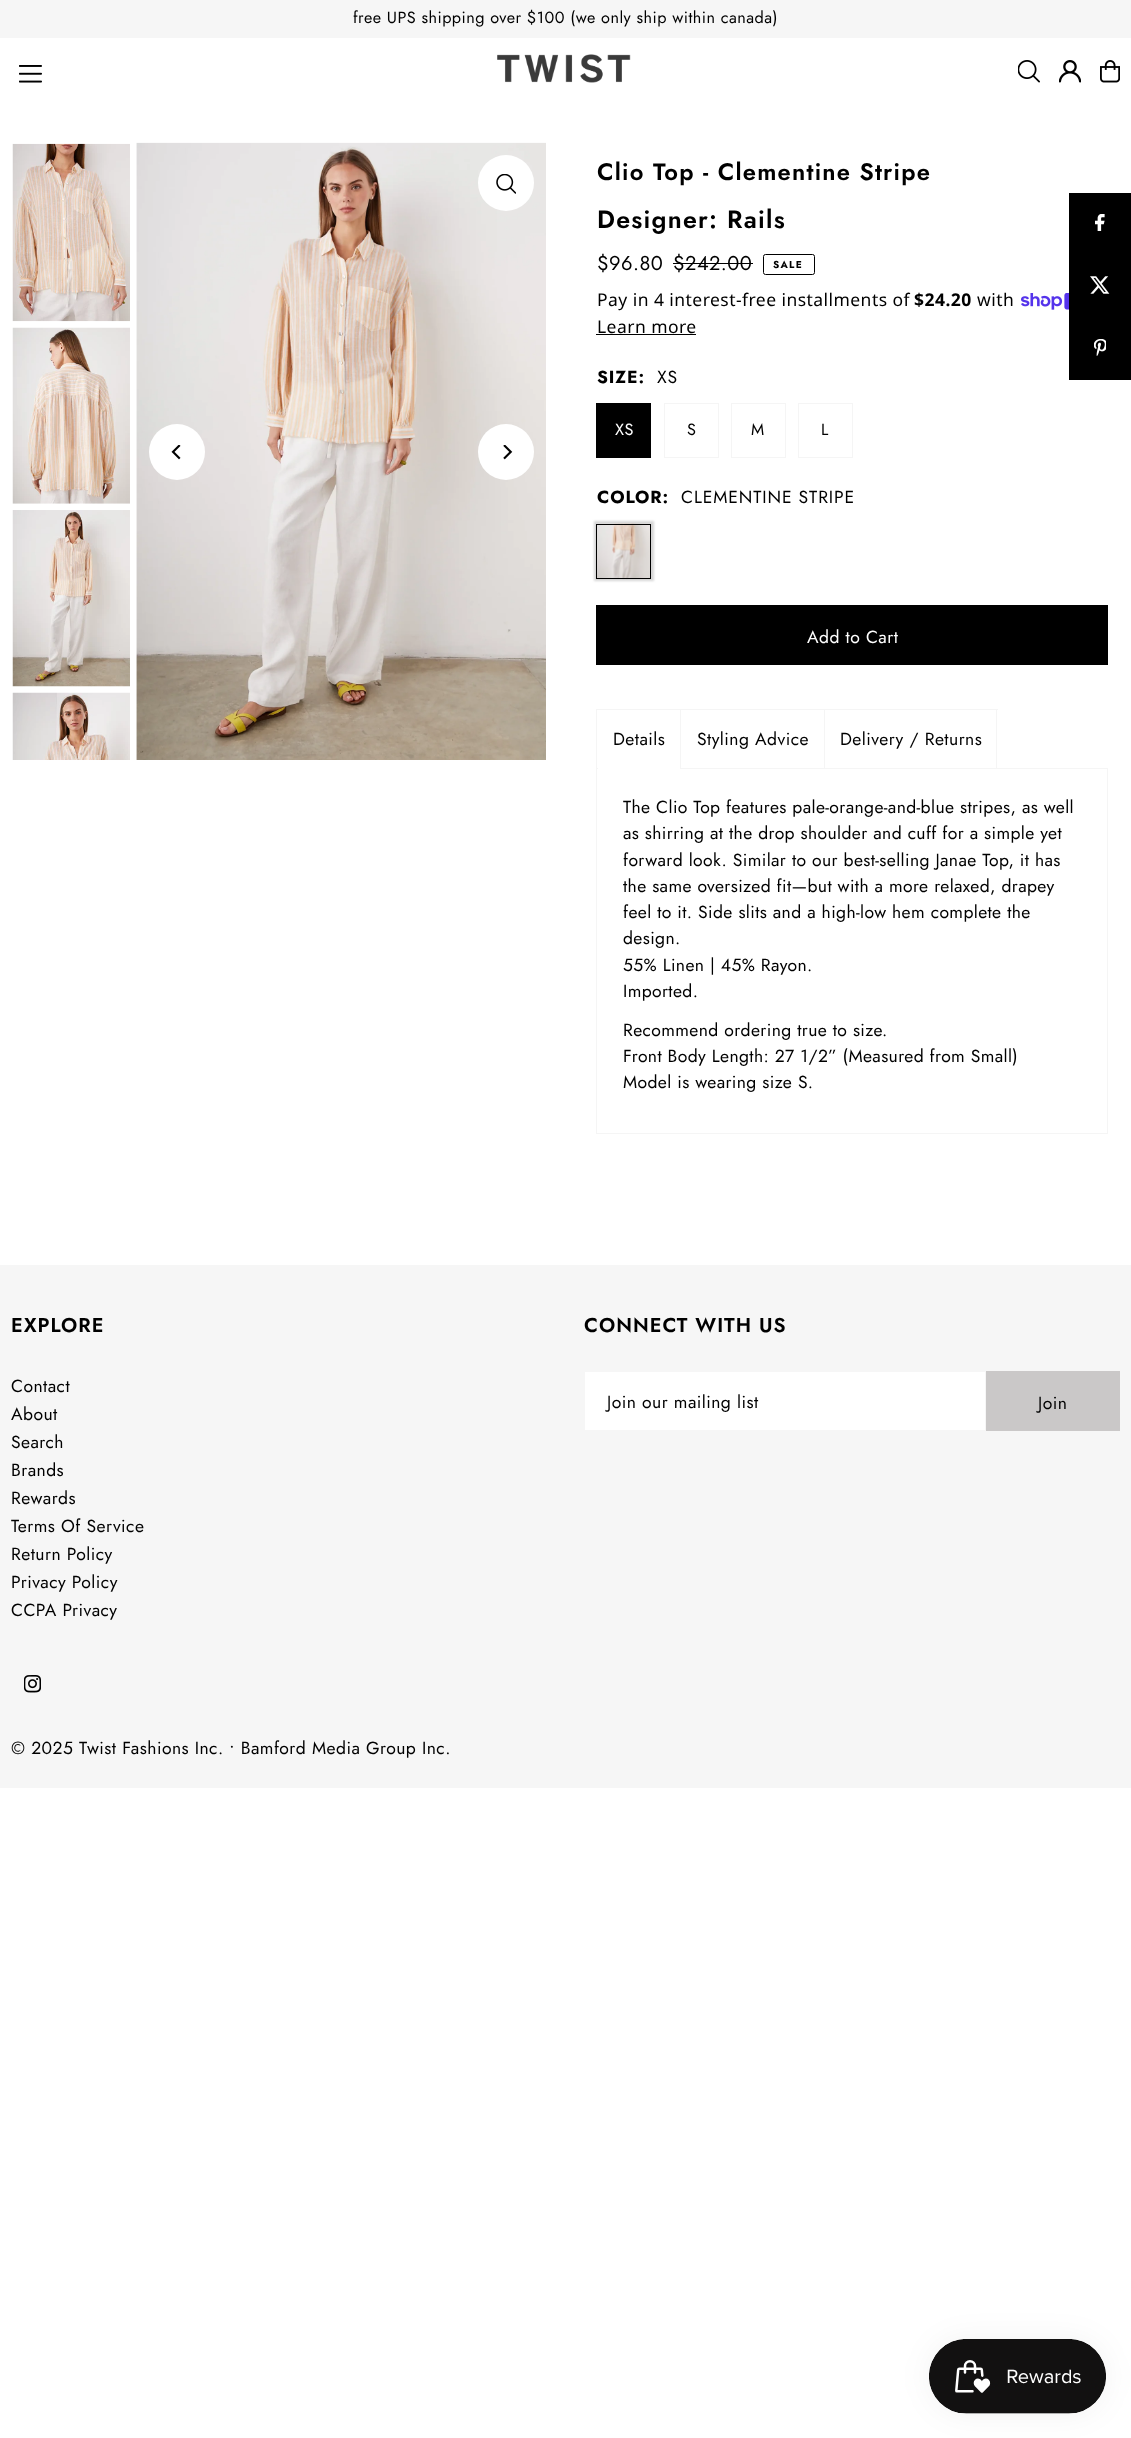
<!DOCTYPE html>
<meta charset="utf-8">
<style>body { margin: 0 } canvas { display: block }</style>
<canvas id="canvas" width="1131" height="2438"></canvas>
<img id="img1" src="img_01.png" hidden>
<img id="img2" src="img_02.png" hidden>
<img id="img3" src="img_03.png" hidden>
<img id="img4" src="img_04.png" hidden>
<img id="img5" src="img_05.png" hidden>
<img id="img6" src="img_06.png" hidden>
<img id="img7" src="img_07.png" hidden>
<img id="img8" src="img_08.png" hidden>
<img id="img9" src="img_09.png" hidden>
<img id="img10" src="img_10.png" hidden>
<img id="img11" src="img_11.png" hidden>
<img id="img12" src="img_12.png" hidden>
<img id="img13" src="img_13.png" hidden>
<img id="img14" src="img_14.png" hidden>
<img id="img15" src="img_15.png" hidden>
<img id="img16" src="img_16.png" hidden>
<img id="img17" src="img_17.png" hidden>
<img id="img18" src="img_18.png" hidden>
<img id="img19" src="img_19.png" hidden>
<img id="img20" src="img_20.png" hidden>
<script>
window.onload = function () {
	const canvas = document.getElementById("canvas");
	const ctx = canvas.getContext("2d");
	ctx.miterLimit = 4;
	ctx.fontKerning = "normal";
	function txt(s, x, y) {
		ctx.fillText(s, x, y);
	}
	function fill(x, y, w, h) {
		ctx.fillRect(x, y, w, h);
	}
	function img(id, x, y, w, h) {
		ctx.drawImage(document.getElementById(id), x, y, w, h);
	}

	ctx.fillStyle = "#FFFFFF";
	fill(0, 0, 1131, 2438);
	ctx.fillStyle = "#F6F6F6";
	fill(0, 0, 1131, 38);
	img("img1", 19, 65, 23, 18);
	img("img2", 497, 54, 134, 29);
	img("img3", 1018, 60, 22, 23);
	img("img4", 1059, 60, 22, 23);
	img("img5", 1100, 60, 20, 23);
	img("img6", 12, 143, 118, 179);
	img("img7", 12, 327, 118, 177);
	img("img8", 12, 510, 118, 177);
	img("img9", 12, 692, 118, 68);
	img("img10", 136, 142, 410, 618);
	ctx.fillStyle = "#FFFFFF";
	ctx.beginPath();
	ctx.arc(506, 183, 28, 0, Math.PI * 2);
	ctx.fill();
	img("img11", 496, 174, 20, 20);
	ctx.beginPath();
	ctx.arc(177, 452, 28, 0, Math.PI * 2);
	ctx.fill();
	img("img12", 171, 445, 10, 15);
	ctx.beginPath();
	ctx.arc(506, 452, 28, 0, Math.PI * 2);
	ctx.fill();
	img("img13", 503, 445, 10, 15);
	ctx.fillStyle = "#000000";
	fill(673, 263, 80, 1);
	ctx.beginPath();
	ctx.roundRect(763.5, 254.5, 51, 20, 2);
	ctx.strokeStyle = "#000000";
	ctx.stroke();
	img("img14", 1021, 293, 48, 17);
	fill(596, 334, 100, 1);
	fill(596, 403, 55, 55);
	ctx.strokeStyle = "#F5F5F5";
	ctx.strokeRect(664.5, 403.5, 54, 54);
	ctx.strokeRect(731.5, 403.5, 54, 54);
	ctx.strokeRect(798.5, 403.5, 54, 54);
	ctx.fillStyle = "#D6D6D6";
	ctx.filter = "blur(1px)";
	ctx.beginPath();
	ctx.rect(594, 521, 60, 60);
	ctx.fill();
	ctx.filter = "none";
	img("img15", 596, 523, 55, 57);
	ctx.strokeStyle = "#000000";
	ctx.strokeRect(596.5, 524.5, 54, 54);
	ctx.fillStyle = "#000000";
	fill(596, 605, 512, 60);
	ctx.fillStyle = "#F5F5F5";
	fill(596, 709, 402, 1);
	fill(680, 709, 1, 59);
	fill(596, 709, 1, 59);
	ctx.strokeStyle = "#F5F5F5";
	ctx.strokeRect(596.5, 768.5, 511, 365);
	ctx.fillStyle = "#FFFFFF";
	fill(598, 768, 82, 1);
	ctx.fillStyle = "#F5F5F5";
	fill(824, 709, 1, 59);
	fill(996, 709, 1, 59);
	ctx.fillStyle = "#000000";
	fill(1069, 193, 62, 187);
	img("img16", 1095, 214, 10, 17);
	img("img17", 1090, 276, 20, 18);
	img("img18", 1094, 339, 12, 17);
	ctx.fillStyle = "#F6F6F6";
	fill(0, 1265, 1131, 523);
	ctx.fillStyle = "#FFFFFF";
	fill(585, 1372, 400, 58);
	ctx.fillStyle = "#CAC8C8";
	fill(986, 1371, 134, 60);
	img("img19", 24, 1675, 17, 18);
	ctx.fillStyle = "rgba(0, 0, 0, 0.05)";
	ctx.filter = "blur(15.5px)";
	ctx.beginPath();
	ctx.roundRect(929, 2339, 177, 75, 37.5);
	ctx.fill();
	ctx.filter = "none";
	img("img20", 929, 2339, 177, 75);
	ctx.letterSpacing = "0.45px";
	ctx.font = "16.25px Jost";
	ctx.fillStyle = "#000000";
	txt("free UPS shipping over $100 (we only ship within canada)", 353, 23);
	ctx.letterSpacing = "1.2px";
	ctx.font = "600 23.75px Jost";
	txt("Clio Top - Clementine Stripe", 597, 180);
	ctx.letterSpacing = "1.25px";
	ctx.font = "600 25px Jost";
	txt("Designer: Rails", 597, 228);
	ctx.letterSpacing = "0.45px";
	ctx.font = "20px Jost";
	txt("$96.80", 597, 270);
	txt("$242.00", 673, 270);
	ctx.letterSpacing = "1.25px";
	ctx.font = "bold 10px Jost";
	txt("SALE", 773, 268);
	ctx.letterSpacing = "0.45px";
	ctx.font = "17.5px Noto Sans";
	txt("Pay in 4 interest-free installments of", 597, 306);
	ctx.font = "bold 17.5px Noto Sans";
	txt("$24.20", 914, 306);
	ctx.font = "17.5px Noto Sans";
	txt("with", 977, 306);
	txt("Learn more", 597, 333);
	ctx.letterSpacing = "0.9px";
	ctx.font = "bold 17.5px Jost";
	txt("SIZE:", 597, 383);
	ctx.font = "17.5px Jost";
	txt("XS", 657, 383);
	ctx.letterSpacing = "0.45px";
	ctx.font = "16.25px Jost";
	ctx.fillStyle = "#FFFFFF";
	txt("XS", 615, 435);
	ctx.fillStyle = "#000000";
	txt("S", 687, 435);
	txt("M", 751, 435);
	txt("L", 821, 435);
	ctx.letterSpacing = "0.9px";
	ctx.font = "bold 17.5px Jost";
	txt("COLOR:", 597, 503);
	ctx.font = "17.5px Jost";
	txt("CLEMENTINE STRIPE", 681, 503);
	ctx.letterSpacing = "0.45px";
	ctx.fillStyle = "#FFFFFF";
	txt("Add to Cart", 807, 643);
	ctx.fillStyle = "#000000";
	txt("Details", 613, 745);
	txt("Styling Advice", 697, 745);
	txt("Delivery / Returns", 840, 745);
	ctx.letterSpacing = "0.38px";
	txt("The Clio Top features pale-orange-and-blue stripes, as well", 623, 813);
	txt("as shirring at the drop shoulder and cuff for a simple yet", 623, 839);
	txt("forward look. Similar to our best-selling Janae Top, it has", 623, 866);
	txt("the same oversized fit—but with a more relaxed, drapey", 623, 892);
	txt("feel to it. Side slits and a high-low hem complete the", 623, 918);
	txt("design.", 623, 944);
	txt("55% Linen | 45% Rayon.", 623, 971);
	txt("Imported.", 623, 997);
	txt("Recommend ordering true to size.", 623, 1036);
	txt("Front Body Length: 27 1/2” (Measured from Small)", 623, 1062);
	txt("Model is wearing size S.", 623, 1088);
	ctx.letterSpacing = "1px";
	ctx.font = "600 20px Jost";
	txt("EXPLORE", 11, 1332);
	ctx.letterSpacing = "0.45px";
	ctx.font = "17.5px Jost";
	txt("Contact", 11, 1392);
	txt("About", 11, 1420);
	txt("Search", 11, 1448);
	txt("Brands", 11, 1476);
	txt("Rewards", 11, 1504);
	txt("Terms Of Service", 11, 1532);
	txt("Return Policy", 11, 1560);
	txt("Privacy Policy", 11, 1588);
	txt("CCPA Privacy", 11, 1616);
	ctx.letterSpacing = "1px";
	ctx.font = "600 20px Jost";
	txt("CONNECT WITH US", 584, 1332);
	ctx.letterSpacing = "0.45px";
	ctx.font = "17.5px Jost";
	txt("Join our mailing list", 607, 1408);
	txt("Join", 1038, 1409);
	txt("© 2025 Twist Fashions Inc. • Bamford Media Group Inc.", 11, 1754);
};
</script>
